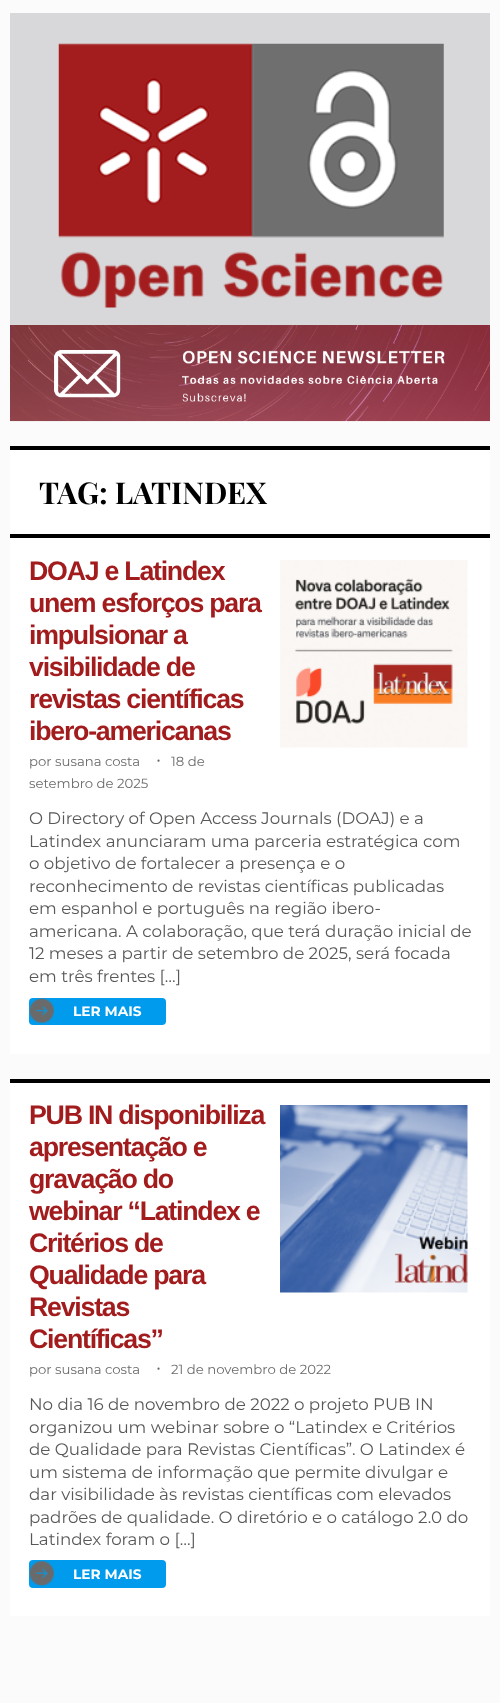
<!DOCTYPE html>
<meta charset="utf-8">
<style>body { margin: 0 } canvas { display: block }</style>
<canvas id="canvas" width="500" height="1703"></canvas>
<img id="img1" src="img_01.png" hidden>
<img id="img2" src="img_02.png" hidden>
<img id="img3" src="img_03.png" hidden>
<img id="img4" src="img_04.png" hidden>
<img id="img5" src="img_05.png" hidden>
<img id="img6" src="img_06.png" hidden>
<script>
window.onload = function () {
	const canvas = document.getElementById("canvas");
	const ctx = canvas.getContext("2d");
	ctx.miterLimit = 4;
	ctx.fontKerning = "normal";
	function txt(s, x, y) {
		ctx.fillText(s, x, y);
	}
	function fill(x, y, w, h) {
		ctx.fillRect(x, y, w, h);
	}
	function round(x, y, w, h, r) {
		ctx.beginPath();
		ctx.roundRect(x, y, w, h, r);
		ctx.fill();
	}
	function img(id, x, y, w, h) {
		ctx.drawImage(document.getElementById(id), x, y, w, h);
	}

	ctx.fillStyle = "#FBFBFB";
	fill(0, 0, 500, 1703);
	ctx.fillStyle = "#D8D8DA";
	fill(10, 13, 480, 312);
	img("img1", 58, 43, 386, 265);
	img("img2", 10, 325, 480, 97);
	ctx.fillStyle = "#FFFFFF";
	fill(10, 450, 480, 84);
	ctx.fillStyle = "#000000";
	fill(10, 446, 480, 4);
	ctx.fillStyle = "#FFFFFF";
	fill(10, 538, 480, 516);
	ctx.fillStyle = "#000000";
	fill(10, 534, 480, 4);
	img("img3", 280, 560, 188, 188);
	ctx.fillStyle = "#009BEC";
	round(29, 998, 137, 27, 4);
	img("img4", 29, 998, 25, 26);
	ctx.fillStyle = "#FFFFFF";
	fill(10, 1083, 480, 533);
	ctx.fillStyle = "#000000";
	fill(10, 1079, 480, 4);
	img("img5", 280, 1105, 188, 188);
	ctx.fillStyle = "#009BEC";
	round(29, 1560, 137, 28, 4);
	img("img6", 29, 1561, 25, 26);
	ctx.font = "bold 30px Playfair Display";
	ctx.fillStyle = "#000000";
	txt("TAG: LATINDEX", 39, 504);
	ctx.letterSpacing = "-1.25px";
	ctx.font = "bold 26.75px Liberation Sans";
	ctx.fillStyle = "#A31C1D";
	txt("DOAJ e Latindex", 29, 580);
	txt("unem esforços para", 29, 612);
	txt("impulsionar a", 29, 644);
	txt("visibilidade de", 29, 676);
	txt("revistas científicas", 29, 708);
	txt("ibero-americanas", 29, 740);
	ctx.letterSpacing = "0px";
	ctx.font = "13.25px Montserrat";
	ctx.fillStyle = "#6A6A6A";
	txt("por susana costa", 29, 766);
	ctx.font = "20px Montserrat";
	txt("·", 156, 766);
	ctx.font = "13.25px Montserrat";
	txt("18 de", 171, 766);
	txt("setembro de 2025", 29, 788);
	ctx.font = "16.7px Montserrat";
	ctx.fillStyle = "#585857";
	txt("O Directory of Open Access Journals (DOAJ) e a", 29, 824);
	txt("Latindex anunciaram uma parceria estratégica com", 29, 847);
	txt("o objetivo de fortalecer a presença e o", 29, 869);
	txt("reconhecimento de revistas científicas publicadas", 29, 892);
	txt("em espanhol e português na região ibero-", 29, 914);
	txt("americana. A colaboração, que terá duração inicial de", 29, 937);
	txt("12 meses a partir de setembro de 2025, será focada", 29, 959);
	txt("em três frentes […]", 29, 982);
	ctx.font = "bold 13.75px Montserrat";
	ctx.fillStyle = "#FFFFFF";
	txt("LER MAIS", 73, 1016);
	ctx.letterSpacing = "-1.25px";
	ctx.font = "bold 26.75px Liberation Sans";
	ctx.fillStyle = "#A31C1D";
	txt("PUB IN disponibiliza", 29, 1124);
	txt("apresentação e", 29, 1156);
	txt("gravação do", 29, 1188);
	txt("webinar “Latindex e", 29, 1220);
	txt("Critérios de", 29, 1252);
	txt("Qualidade para", 29, 1284);
	txt("Revistas", 29, 1316);
	txt("Científicas”", 29, 1348);
	ctx.letterSpacing = "0px";
	ctx.font = "13.25px Montserrat";
	ctx.fillStyle = "#6A6A6A";
	txt("por susana costa", 29, 1374);
	ctx.font = "20px Montserrat";
	txt("·", 156, 1374);
	ctx.font = "13.25px Montserrat";
	txt("21 de novembro de 2022", 171, 1374);
	ctx.font = "16.7px Montserrat";
	ctx.fillStyle = "#585857";
	txt("No dia 16 de novembro de 2022 o projeto PUB IN", 29, 1410);
	txt("organizou um webinar sobre o “Latindex e Critérios", 29, 1433);
	txt("de Qualidade para Revistas Científicas”. O Latindex é", 29, 1455);
	txt("um sistema de informação que permite divulgar e", 29, 1478);
	txt("dar visibilidade às revistas científicas com elevados", 29, 1500);
	txt("padrões de qualidade. O diretório e o catálogo 2.0 do", 29, 1523);
	txt("Latindex foram o […]", 29, 1545);
	ctx.font = "bold 13.75px Montserrat";
	ctx.fillStyle = "#FFFFFF";
	txt("LER MAIS", 73, 1579);
};
</script>
